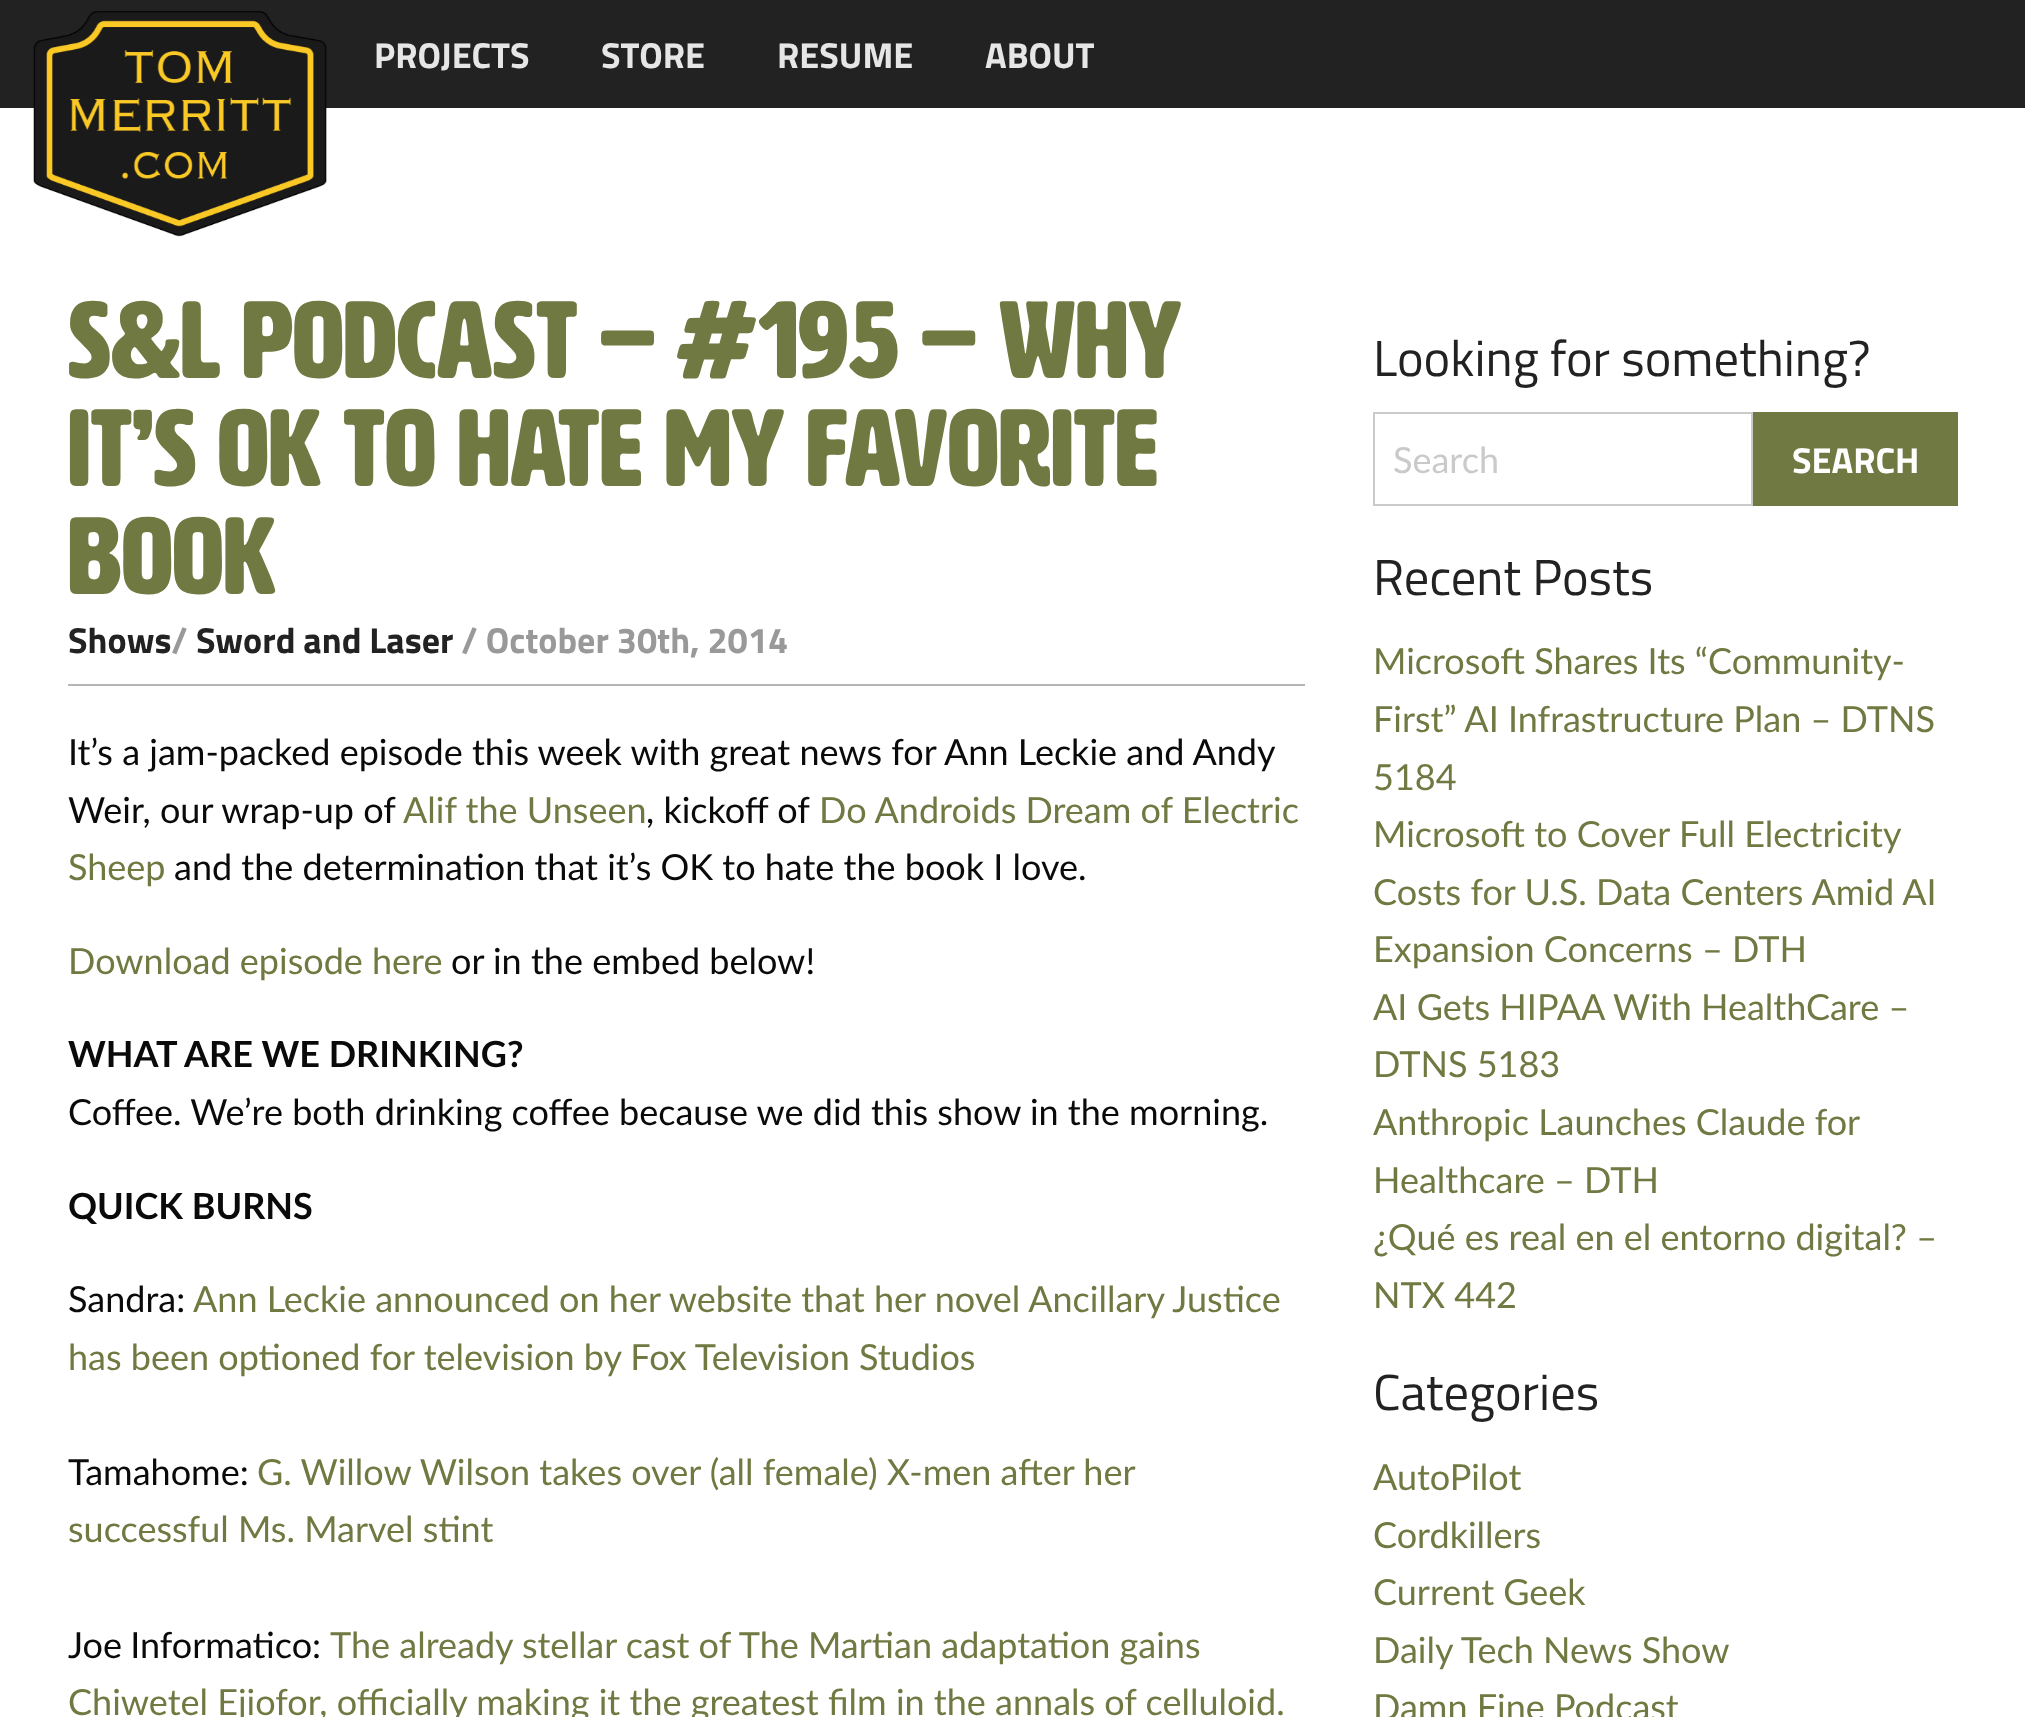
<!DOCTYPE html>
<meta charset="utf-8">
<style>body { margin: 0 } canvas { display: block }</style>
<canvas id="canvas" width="2025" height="1717"></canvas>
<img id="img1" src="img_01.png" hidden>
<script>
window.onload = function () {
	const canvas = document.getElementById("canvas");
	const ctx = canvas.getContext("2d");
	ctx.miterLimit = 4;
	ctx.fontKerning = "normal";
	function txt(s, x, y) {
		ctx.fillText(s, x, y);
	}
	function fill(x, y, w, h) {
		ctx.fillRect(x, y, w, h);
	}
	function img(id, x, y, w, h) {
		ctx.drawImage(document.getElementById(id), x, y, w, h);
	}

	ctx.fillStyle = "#FFFFFF";
	fill(0, 0, 2025, 1717);
	ctx.fillStyle = "#222222";
	fill(0, 0, 2025, 108);
	img("img1", 33, 11, 294, 226);
	ctx.fillStyle = "#B5B5B5";
	fill(68, 684, 1237, 2);
	ctx.strokeStyle = "#CACACA";
	ctx.lineWidth = 2;
	ctx.strokeRect(1374, 413, 378, 92);
	ctx.fillStyle = "#707941";
	fill(1753, 412, 205, 94);
	ctx.font = "bold 36px Titillium Web";
	ctx.fillStyle = "#E6E6E6";
	txt("PROJECTS", 374, 68);
	txt("STORE", 601, 68);
	txt("RESUME", 777, 68);
	txt("ABOUT", 985, 68);
	ctx.font = "bold 108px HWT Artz";
	ctx.fillStyle = "#707941";
	txt("S&L Podcast – #195 – Why", 68, 378);
	txt("It’s OK to Hate My Favorite", 68, 486);
	txt("Book", 68, 594);
	ctx.font = "bold 36px Titillium Web";
	ctx.fillStyle = "#222222";
	txt("Shows", 68, 653);
	ctx.fillStyle = "#999999";
	txt("/", 171, 653);
	ctx.fillStyle = "#222222";
	txt("Sword and Laser", 196, 653);
	ctx.fillStyle = "#999999";
	txt("/ October 30th, 2014", 461, 653);
	ctx.font = "36px Lato";
	ctx.fillStyle = "#0A0A0A";
	txt("It’s a jam-packed episode this week with great news for Ann Leckie and Andy", 68, 765);
	txt("Weir, our wrap-up of", 68, 823);
	ctx.fillStyle = "#707941";
	txt("Alif the Unseen", 403, 823);
	ctx.fillStyle = "#0A0A0A";
	txt(", kickoff of", 646, 823);
	ctx.fillStyle = "#707941";
	txt("Do Androids Dream of Electric", 819, 823);
	txt("Sheep", 68, 880);
	ctx.fillStyle = "#0A0A0A";
	txt("and the determination that it’s OK to hate the book I love.", 174, 880);
	ctx.fillStyle = "#707941";
	txt("Download episode here", 68, 974);
	ctx.fillStyle = "#0A0A0A";
	txt("or in the embed below!", 451, 974);
	ctx.font = "bold 36px Lato";
	txt("WHAT ARE WE DRINKING?", 68, 1067);
	ctx.font = "36px Lato";
	txt("Coffee. We’re both drinking coffee because we did this show in the morning.", 68, 1125);
	ctx.font = "bold 36px Lato";
	txt("QUICK BURNS", 68, 1219);
	ctx.font = "36px Lato";
	txt("Sandra:", 68, 1312);
	ctx.fillStyle = "#707941";
	txt("Ann Leckie announced on her website that her novel Ancillary Justice", 193, 1312);
	txt("has been optioned for television by Fox Television Studios", 68, 1370);
	ctx.fillStyle = "#0A0A0A";
	txt("Tamahome:", 68, 1485);
	ctx.fillStyle = "#707941";
	txt("G. Willow Wilson takes over (all female) X-men after her", 257, 1485);
	txt("successful Ms. Marvel stint", 68, 1542);
	ctx.wordSpacing = "-1px";
	ctx.fillStyle = "#0A0A0A";
	txt("Joe Informatico:", 68, 1658);
	ctx.wordSpacing = "0px";
	ctx.fillStyle = "#707941";
	txt("The already stellar cast of The Martian adaptation gains", 330, 1658);
	txt("Chiwetel Ejiofor, officially making it the greatest film in the annals of celluloid.", 68, 1715);
	ctx.font = "50.5px Titillium Web";
	ctx.fillStyle = "#222222";
	txt("Looking for something?", 1373, 376);
	ctx.font = "36px Lato";
	ctx.fillStyle = "#CACACA";
	txt("Search", 1393, 473);
	ctx.font = "bold 36px Titillium Web";
	ctx.fillStyle = "#FEFEFE";
	txt("SEARCH", 1792, 473);
	ctx.font = "50.5px Titillium Web";
	ctx.fillStyle = "#222222";
	txt("Recent Posts", 1373, 595);
	ctx.font = "36px Lato";
	ctx.fillStyle = "#707941";
	txt("Microsoft Shares Its “Community-", 1373, 674);
	txt("First” AI Infrastructure Plan – DTNS", 1373, 732);
	txt("5184", 1373, 790);
	txt("Microsoft to Cover Full Electricity", 1373, 847);
	txt("Costs for U.S. Data Centers Amid AI", 1373, 905);
	txt("Expansion Concerns – DTH", 1373, 962);
	txt("AI Gets HIPAA With HealthCare –", 1373, 1020);
	txt("DTNS 5183", 1373, 1077);
	txt("Anthropic Launches Claude for", 1373, 1135);
	txt("Healthcare – DTH", 1373, 1193);
	txt("¿Qué es real en el entorno digital? –", 1373, 1250);
	txt("NTX 442", 1373, 1308);
	ctx.font = "50.5px Titillium Web";
	ctx.fillStyle = "#222222";
	txt("Categories", 1373, 1410);
	ctx.font = "36px Lato";
	ctx.fillStyle = "#707941";
	txt("AutoPilot", 1373, 1490);
	txt("Cordkillers", 1373, 1548);
	txt("Current Geek", 1373, 1605);
	txt("Daily Tech News Show", 1373, 1663);
	txt("Damn Fine Podcast", 1373, 1720);
};
</script>
